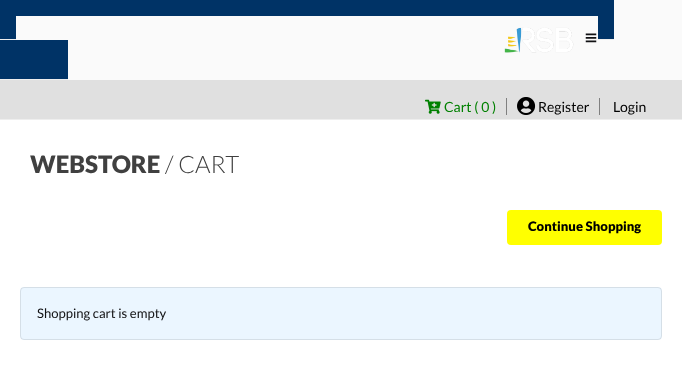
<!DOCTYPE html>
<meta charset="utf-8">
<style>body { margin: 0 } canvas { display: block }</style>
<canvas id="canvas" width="682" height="384"></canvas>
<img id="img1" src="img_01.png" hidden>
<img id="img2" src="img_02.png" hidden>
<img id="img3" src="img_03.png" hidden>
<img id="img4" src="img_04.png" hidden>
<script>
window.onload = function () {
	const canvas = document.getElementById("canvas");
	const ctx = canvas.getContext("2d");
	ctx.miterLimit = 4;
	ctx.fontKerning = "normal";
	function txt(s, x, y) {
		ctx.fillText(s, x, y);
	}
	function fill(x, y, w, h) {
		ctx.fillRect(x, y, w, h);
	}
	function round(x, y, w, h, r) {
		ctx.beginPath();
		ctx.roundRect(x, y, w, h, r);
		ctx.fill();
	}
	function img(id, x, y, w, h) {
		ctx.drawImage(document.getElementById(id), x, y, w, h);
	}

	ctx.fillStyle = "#FFFFFF";
	fill(0, 0, 682, 384);
	ctx.fillStyle = "#FAFAFA";
	fill(598, 0, 84, 80);
	ctx.fillStyle = "#003366";
	fill(0, 0, 614, 39);
	ctx.fillStyle = "#EEEEEE";
	fill(0, 39, 614, 1);
	ctx.fillStyle = "#FAFAFA";
	fill(16, 16, 582, 64);
	img("img1", 504, 27, 70, 26);
	img("img2", 585, 33, 12, 10);
	ctx.fillStyle = "#003366";
	fill(0, 40, 68, 39);
	ctx.fillStyle = "#EEEEEE";
	fill(0, 79, 68, 1);
	ctx.fillStyle = "#E0E0E0";
	fill(0, 80, 682, 39);
	ctx.fillStyle = "#EEEEEE";
	fill(0, 119, 682, 1);
	img("img3", 425, 99, 16, 15);
	ctx.fillStyle = "#808080";
	fill(506, 98, 1, 17);
	img("img4", 517, 97, 19, 18);
	fill(599, 98, 1, 17);
	ctx.fillStyle = "#FFFF00";
	round(507, 210, 155, 35, 4);
	ctx.fillStyle = "#EBF6FF";
	round(20, 287, 642, 53, 4);
	ctx.beginPath();
	ctx.roundRect(20.5, 287.5, 641, 52, 3.5);
	ctx.strokeStyle = "rgba(17, 17, 19, 0.1)";
	ctx.stroke();
	ctx.font = "14px Lato";
	ctx.fillStyle = "#008000";
	txt("Cart ( 0 )", 444, 112);
	ctx.fillStyle = "#000000";
	txt("Register", 538, 112);
	txt("Login", 613, 112);
	ctx.font = "900 24px Lato";
	ctx.fillStyle = "#404040";
	txt("WEBSTORE", 30, 173);
	ctx.font = "300 24px Lato";
	txt("/ CART", 165, 173);
	ctx.font = "900 13.1px Lato";
	ctx.fillStyle = "#000000";
	txt("Continue Shopping", 528, 231);
	ctx.font = "13.1px Lato";
	ctx.fillStyle = "#111113";
	txt("Shopping cart is empty", 37, 318);
};
</script>
